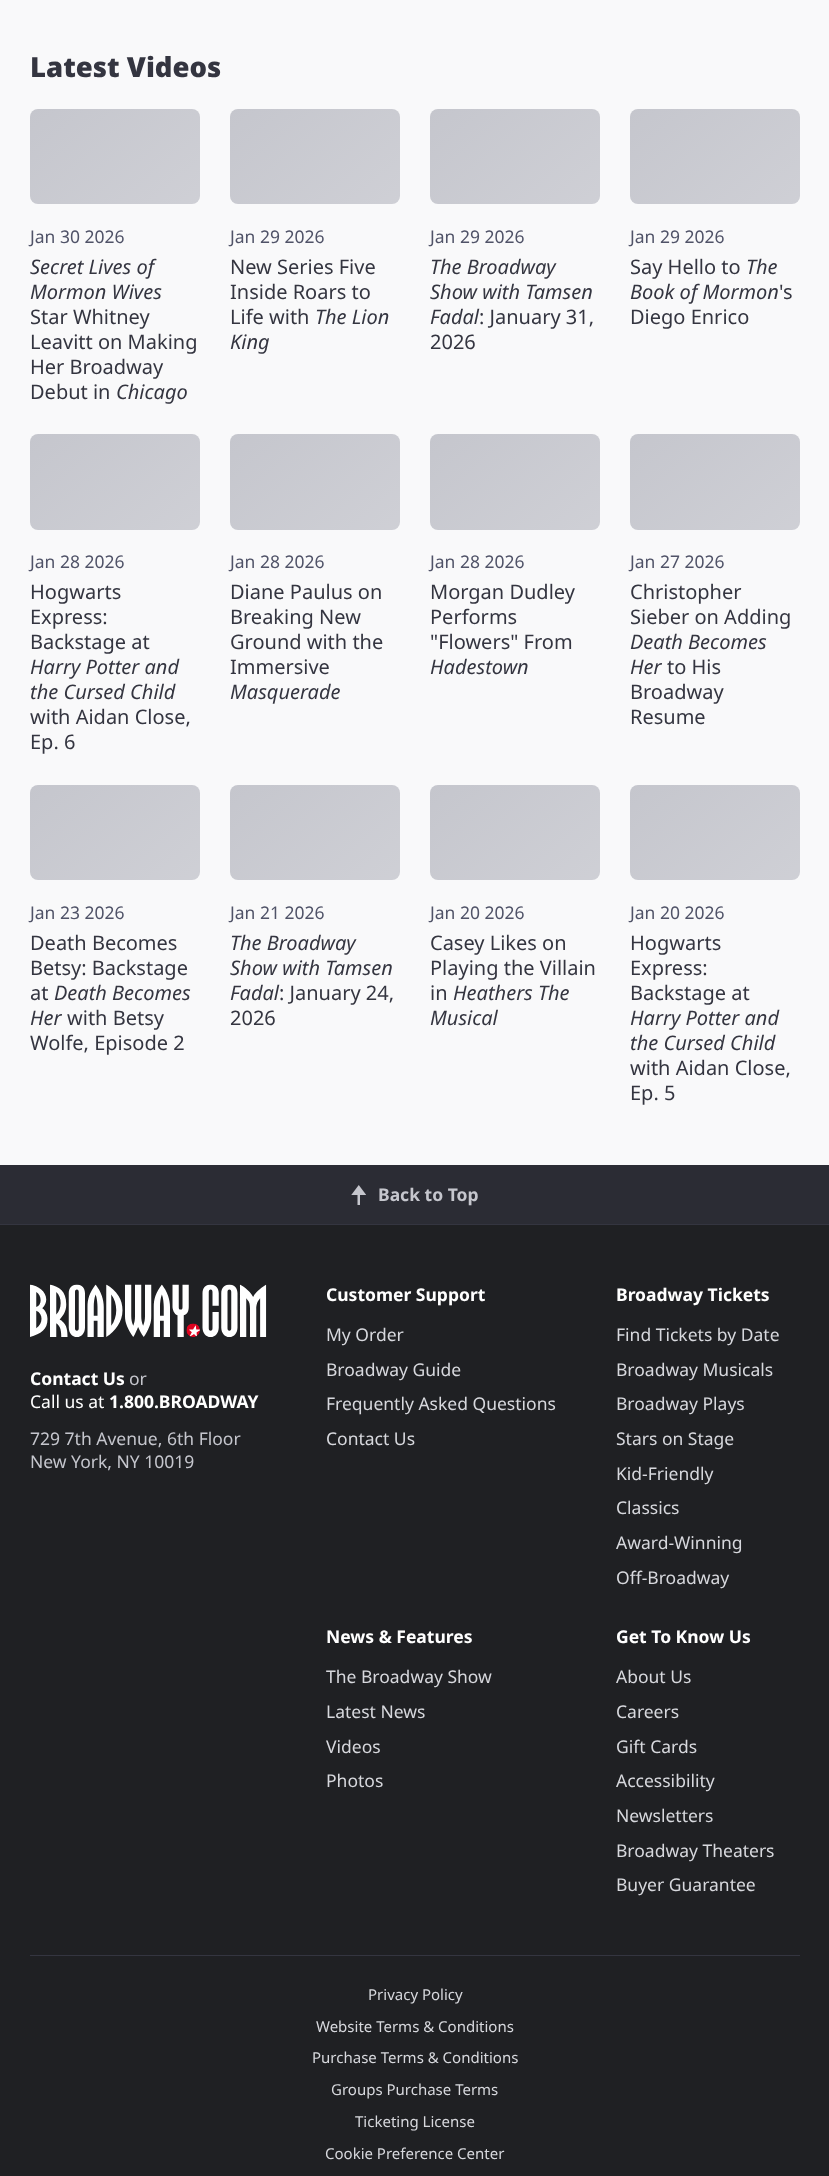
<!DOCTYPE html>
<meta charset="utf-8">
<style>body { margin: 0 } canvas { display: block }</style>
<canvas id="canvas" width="829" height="2176"></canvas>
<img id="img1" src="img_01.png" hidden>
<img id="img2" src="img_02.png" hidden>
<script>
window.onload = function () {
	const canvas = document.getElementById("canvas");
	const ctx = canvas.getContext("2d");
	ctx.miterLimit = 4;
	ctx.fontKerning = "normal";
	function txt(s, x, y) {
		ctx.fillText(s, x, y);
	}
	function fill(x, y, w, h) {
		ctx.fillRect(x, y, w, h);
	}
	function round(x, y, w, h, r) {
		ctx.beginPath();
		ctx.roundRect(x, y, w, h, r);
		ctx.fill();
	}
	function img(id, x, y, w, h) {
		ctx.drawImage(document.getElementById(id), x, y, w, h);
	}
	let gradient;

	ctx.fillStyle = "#F9F9FA";
	fill(0, 0, 829, 2176);
	gradient = ctx.createLinearGradient(604, 578, 136, 20);
	gradient.addColorStop(0, "#ECECEF");
	gradient.addColorStop(1, "#C5C6CD");
	ctx.fillStyle = gradient;
	round(30, 109, 170, 95, 8);
	gradient = ctx.createLinearGradient(804, 578, 336, 20);
	gradient.addColorStop(0, "#ECECEF");
	gradient.addColorStop(1, "#C5C6CD");
	ctx.fillStyle = gradient;
	round(230, 109, 170, 95, 8);
	gradient = ctx.createLinearGradient(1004, 578, 536, 20);
	gradient.addColorStop(0, "#ECECEF");
	gradient.addColorStop(1, "#C5C6CD");
	ctx.fillStyle = gradient;
	round(430, 109, 170, 95, 8);
	gradient = ctx.createLinearGradient(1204, 578, 736, 20);
	gradient.addColorStop(0, "#ECECEF");
	gradient.addColorStop(1, "#C5C6CD");
	ctx.fillStyle = gradient;
	round(630, 109, 170, 95, 8);
	gradient = ctx.createLinearGradient(605, 907, 135, 346);
	gradient.addColorStop(0, "#ECECEF");
	gradient.addColorStop(1, "#C5C6CD");
	ctx.fillStyle = gradient;
	round(30, 434, 170, 96, 8);
	gradient = ctx.createLinearGradient(805, 907, 335, 346);
	gradient.addColorStop(0, "#ECECEF");
	gradient.addColorStop(1, "#C5C6CD");
	ctx.fillStyle = gradient;
	round(230, 434, 170, 96, 8);
	gradient = ctx.createLinearGradient(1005, 907, 535, 346);
	gradient.addColorStop(0, "#ECECEF");
	gradient.addColorStop(1, "#C5C6CD");
	ctx.fillStyle = gradient;
	round(430, 434, 170, 96, 8);
	gradient = ctx.createLinearGradient(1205, 907, 735, 346);
	gradient.addColorStop(0, "#ECECEF");
	gradient.addColorStop(1, "#C5C6CD");
	ctx.fillStyle = gradient;
	round(630, 434, 170, 96, 8);
	gradient = ctx.createLinearGradient(604, 1254, 136, 696);
	gradient.addColorStop(0, "#ECECEF");
	gradient.addColorStop(1, "#C5C6CD");
	ctx.fillStyle = gradient;
	round(30, 785, 170, 95, 8);
	gradient = ctx.createLinearGradient(804, 1254, 336, 696);
	gradient.addColorStop(0, "#ECECEF");
	gradient.addColorStop(1, "#C5C6CD");
	ctx.fillStyle = gradient;
	round(230, 785, 170, 95, 8);
	gradient = ctx.createLinearGradient(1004, 1254, 536, 696);
	gradient.addColorStop(0, "#ECECEF");
	gradient.addColorStop(1, "#C5C6CD");
	ctx.fillStyle = gradient;
	round(430, 785, 170, 95, 8);
	gradient = ctx.createLinearGradient(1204, 1254, 736, 696);
	gradient.addColorStop(0, "#ECECEF");
	gradient.addColorStop(1, "#C5C6CD");
	ctx.fillStyle = gradient;
	round(630, 785, 170, 95, 8);
	ctx.fillStyle = "#2B2C34";
	fill(0, 1165, 829, 59);
	ctx.fillStyle = "#343540";
	fill(0, 1224, 829, 1);
	img("img1", 351, 1185, 15, 20);
	ctx.fillStyle = "#1F2023";
	fill(0, 1225, 829, 951);
	img("img2", 30, 1284, 237, 53);
	ctx.fillStyle = "#343540";
	fill(30, 1955, 770, 1);
	ctx.font = "900 27.5px Noto Sans";
	txt("Latest Videos", 30, 77);
	ctx.font = "17.5px Noto Sans";
	ctx.fillStyle = "#505368";
	txt("Jan 30 2026", 30, 243);
	ctx.font = "italic 20px Noto Sans";
	ctx.fillStyle = "#343540";
	txt("Secret Lives of", 30, 274);
	txt("Mormon Wives", 30, 299);
	ctx.font = "20px Noto Sans";
	txt("Star Whitney", 30, 324);
	txt("Leavitt on Making", 30, 349);
	txt("Her Broadway", 30, 374);
	txt("Debut in", 30, 399);
	ctx.font = "italic 20px Noto Sans";
	txt("Chicago", 116, 399);
	ctx.font = "17.5px Noto Sans";
	ctx.fillStyle = "#505368";
	txt("Jan 29 2026", 230, 243);
	ctx.font = "20px Noto Sans";
	ctx.fillStyle = "#343540";
	txt("New Series Five", 230, 274);
	txt("Inside Roars to", 230, 299);
	txt("Life with", 230, 324);
	ctx.font = "italic 20px Noto Sans";
	txt("The Lion", 315, 324);
	txt("King", 230, 349);
	ctx.font = "17.5px Noto Sans";
	ctx.fillStyle = "#505368";
	txt("Jan 29 2026", 430, 243);
	ctx.font = "italic 20px Noto Sans";
	ctx.fillStyle = "#343540";
	txt("The Broadway", 430, 274);
	txt("Show with Tamsen", 430, 299);
	txt("Fadal", 430, 324);
	ctx.font = "20px Noto Sans";
	txt(": January 31,", 479, 324);
	txt("2026", 430, 349);
	ctx.font = "17.5px Noto Sans";
	ctx.fillStyle = "#505368";
	txt("Jan 29 2026", 630, 243);
	ctx.font = "20px Noto Sans";
	ctx.fillStyle = "#343540";
	txt("Say Hello to", 630, 274);
	ctx.font = "italic 20px Noto Sans";
	txt("The", 746, 274);
	txt("Book of Mormon", 630, 299);
	ctx.font = "20px Noto Sans";
	txt("'s", 779, 299);
	txt("Diego Enrico", 630, 324);
	ctx.font = "17.5px Noto Sans";
	ctx.fillStyle = "#505368";
	txt("Jan 28 2026", 30, 568);
	ctx.font = "20px Noto Sans";
	ctx.fillStyle = "#343540";
	txt("Hogwarts", 30, 599);
	txt("Express:", 30, 624);
	txt("Backstage at", 30, 649);
	ctx.font = "italic 20px Noto Sans";
	txt("Harry Potter and", 30, 674);
	txt("the Cursed Child", 30, 699);
	ctx.font = "20px Noto Sans";
	txt("with Aidan Close,", 30, 724);
	txt("Ep. 6", 30, 749);
	ctx.font = "17.5px Noto Sans";
	ctx.fillStyle = "#505368";
	txt("Jan 28 2026", 230, 568);
	ctx.font = "20px Noto Sans";
	ctx.fillStyle = "#343540";
	txt("Diane Paulus on", 230, 599);
	txt("Breaking New", 230, 624);
	txt("Ground with the", 230, 649);
	txt("Immersive", 230, 674);
	ctx.font = "italic 20px Noto Sans";
	txt("Masquerade", 230, 699);
	ctx.font = "17.5px Noto Sans";
	ctx.fillStyle = "#505368";
	txt("Jan 28 2026", 430, 568);
	ctx.font = "20px Noto Sans";
	ctx.fillStyle = "#343540";
	txt("Morgan Dudley", 430, 599);
	txt("Performs", 430, 624);
	txt("\"Flowers\" From", 430, 649);
	ctx.font = "italic 20px Noto Sans";
	txt("Hadestown", 430, 674);
	ctx.font = "17.5px Noto Sans";
	ctx.fillStyle = "#505368";
	txt("Jan 27 2026", 630, 568);
	ctx.font = "20px Noto Sans";
	ctx.fillStyle = "#343540";
	txt("Christopher", 630, 599);
	txt("Sieber on Adding", 630, 624);
	ctx.font = "italic 20px Noto Sans";
	txt("Death Becomes", 630, 649);
	txt("Her", 630, 674);
	ctx.font = "20px Noto Sans";
	txt("to His", 667, 674);
	txt("Broadway", 630, 699);
	txt("Resume", 630, 724);
	ctx.font = "17.5px Noto Sans";
	ctx.fillStyle = "#505368";
	txt("Jan 23 2026", 30, 919);
	ctx.font = "20px Noto Sans";
	ctx.fillStyle = "#343540";
	txt("Death Becomes", 30, 950);
	txt("Betsy: Backstage", 30, 975);
	txt("at", 30, 1000);
	ctx.font = "italic 20px Noto Sans";
	txt("Death Becomes", 54, 1000);
	txt("Her", 30, 1025);
	ctx.font = "20px Noto Sans";
	txt("with Betsy", 67, 1025);
	txt("Wolfe, Episode 2", 30, 1050);
	ctx.font = "17.5px Noto Sans";
	ctx.fillStyle = "#505368";
	txt("Jan 21 2026", 230, 919);
	ctx.font = "italic 20px Noto Sans";
	ctx.fillStyle = "#343540";
	txt("The Broadway", 230, 950);
	txt("Show with Tamsen", 230, 975);
	txt("Fadal", 230, 1000);
	ctx.font = "20px Noto Sans";
	txt(": January 24,", 279, 1000);
	txt("2026", 230, 1025);
	ctx.font = "17.5px Noto Sans";
	ctx.fillStyle = "#505368";
	txt("Jan 20 2026", 430, 919);
	ctx.font = "20px Noto Sans";
	ctx.fillStyle = "#343540";
	txt("Casey Likes on", 430, 950);
	txt("Playing the Villain", 430, 975);
	txt("in", 430, 1000);
	ctx.font = "italic 20px Noto Sans";
	txt("Heathers The", 453, 1000);
	txt("Musical", 430, 1025);
	ctx.font = "17.5px Noto Sans";
	ctx.fillStyle = "#505368";
	txt("Jan 20 2026", 630, 919);
	ctx.font = "20px Noto Sans";
	ctx.fillStyle = "#343540";
	txt("Hogwarts", 630, 950);
	txt("Express:", 630, 975);
	txt("Backstage at", 630, 1000);
	ctx.font = "italic 20px Noto Sans";
	txt("Harry Potter and", 630, 1025);
	txt("the Cursed Child", 630, 1050);
	ctx.font = "20px Noto Sans";
	txt("with Aidan Close,", 630, 1075);
	txt("Ep. 5", 630, 1100);
	ctx.font = "bold 17.5px Noto Sans";
	ctx.fillStyle = "#C5C6CD";
	txt("Back to Top", 378, 1201);
	ctx.fillStyle = "#FFFFFF";
	txt("Contact Us", 30, 1385);
	ctx.font = "17.5px Noto Sans";
	ctx.fillStyle = "#C5C6CD";
	txt("or", 129, 1385);
	ctx.fillStyle = "#FFFFFF";
	txt("Call us at", 30, 1408);
	ctx.font = "bold 17.5px Noto Sans";
	txt("1.800.BROADWAY", 109, 1408);
	ctx.font = "17.5px Noto Sans";
	ctx.fillStyle = "#C5C6CD";
	txt("729 7th Avenue, 6th Floor", 30, 1445);
	txt("New York, NY 10019", 30, 1468);
	ctx.font = "bold 17.5px Noto Sans";
	ctx.fillStyle = "#FFFFFF";
	txt("Customer Support", 326, 1301);
	ctx.font = "17.5px Noto Sans";
	ctx.fillStyle = "#D7D8DD";
	txt("My Order", 326, 1341);
	txt("Broadway Guide", 326, 1376);
	txt("Frequently Asked Questions", 326, 1410);
	txt("Contact Us", 326, 1445);
	ctx.font = "bold 17.5px Noto Sans";
	ctx.fillStyle = "#FFFFFF";
	txt("Broadway Tickets", 616, 1301);
	ctx.font = "17.5px Noto Sans";
	ctx.fillStyle = "#D7D8DD";
	txt("Find Tickets by Date", 616, 1341);
	txt("Broadway Musicals", 616, 1376);
	txt("Broadway Plays", 616, 1410);
	txt("Stars on Stage", 616, 1445);
	txt("Kid-Friendly", 616, 1480);
	txt("Classics", 616, 1514);
	txt("Award-Winning", 616, 1549);
	txt("Off-Broadway", 616, 1584);
	ctx.font = "bold 17.5px Noto Sans";
	ctx.fillStyle = "#FFFFFF";
	txt("News & Features", 326, 1643);
	ctx.font = "17.5px Noto Sans";
	ctx.fillStyle = "#D7D8DD";
	txt("The Broadway Show", 326, 1683);
	txt("Latest News", 326, 1718);
	txt("Videos", 326, 1753);
	txt("Photos", 326, 1787);
	ctx.font = "bold 17.5px Noto Sans";
	ctx.fillStyle = "#FFFFFF";
	txt("Get To Know Us", 616, 1643);
	ctx.font = "17.5px Noto Sans";
	ctx.fillStyle = "#D7D8DD";
	txt("About Us", 616, 1683);
	txt("Careers", 616, 1718);
	txt("Gift Cards", 616, 1753);
	txt("Accessibility", 616, 1787);
	txt("Newsletters", 616, 1822);
	txt("Broadway Theaters", 616, 1857);
	txt("Buyer Guarantee", 616, 1891);
	ctx.font = "15px Noto Sans";
	txt("Privacy Policy", 368, 2000);
	txt("Website Terms & Conditions", 316, 2032);
	txt("Purchase Terms & Conditions", 312, 2063);
	txt("Groups Purchase Terms", 331, 2095);
	txt("Ticketing License", 355, 2127);
	txt("Cookie Preference Center", 325, 2159);
};
</script>
